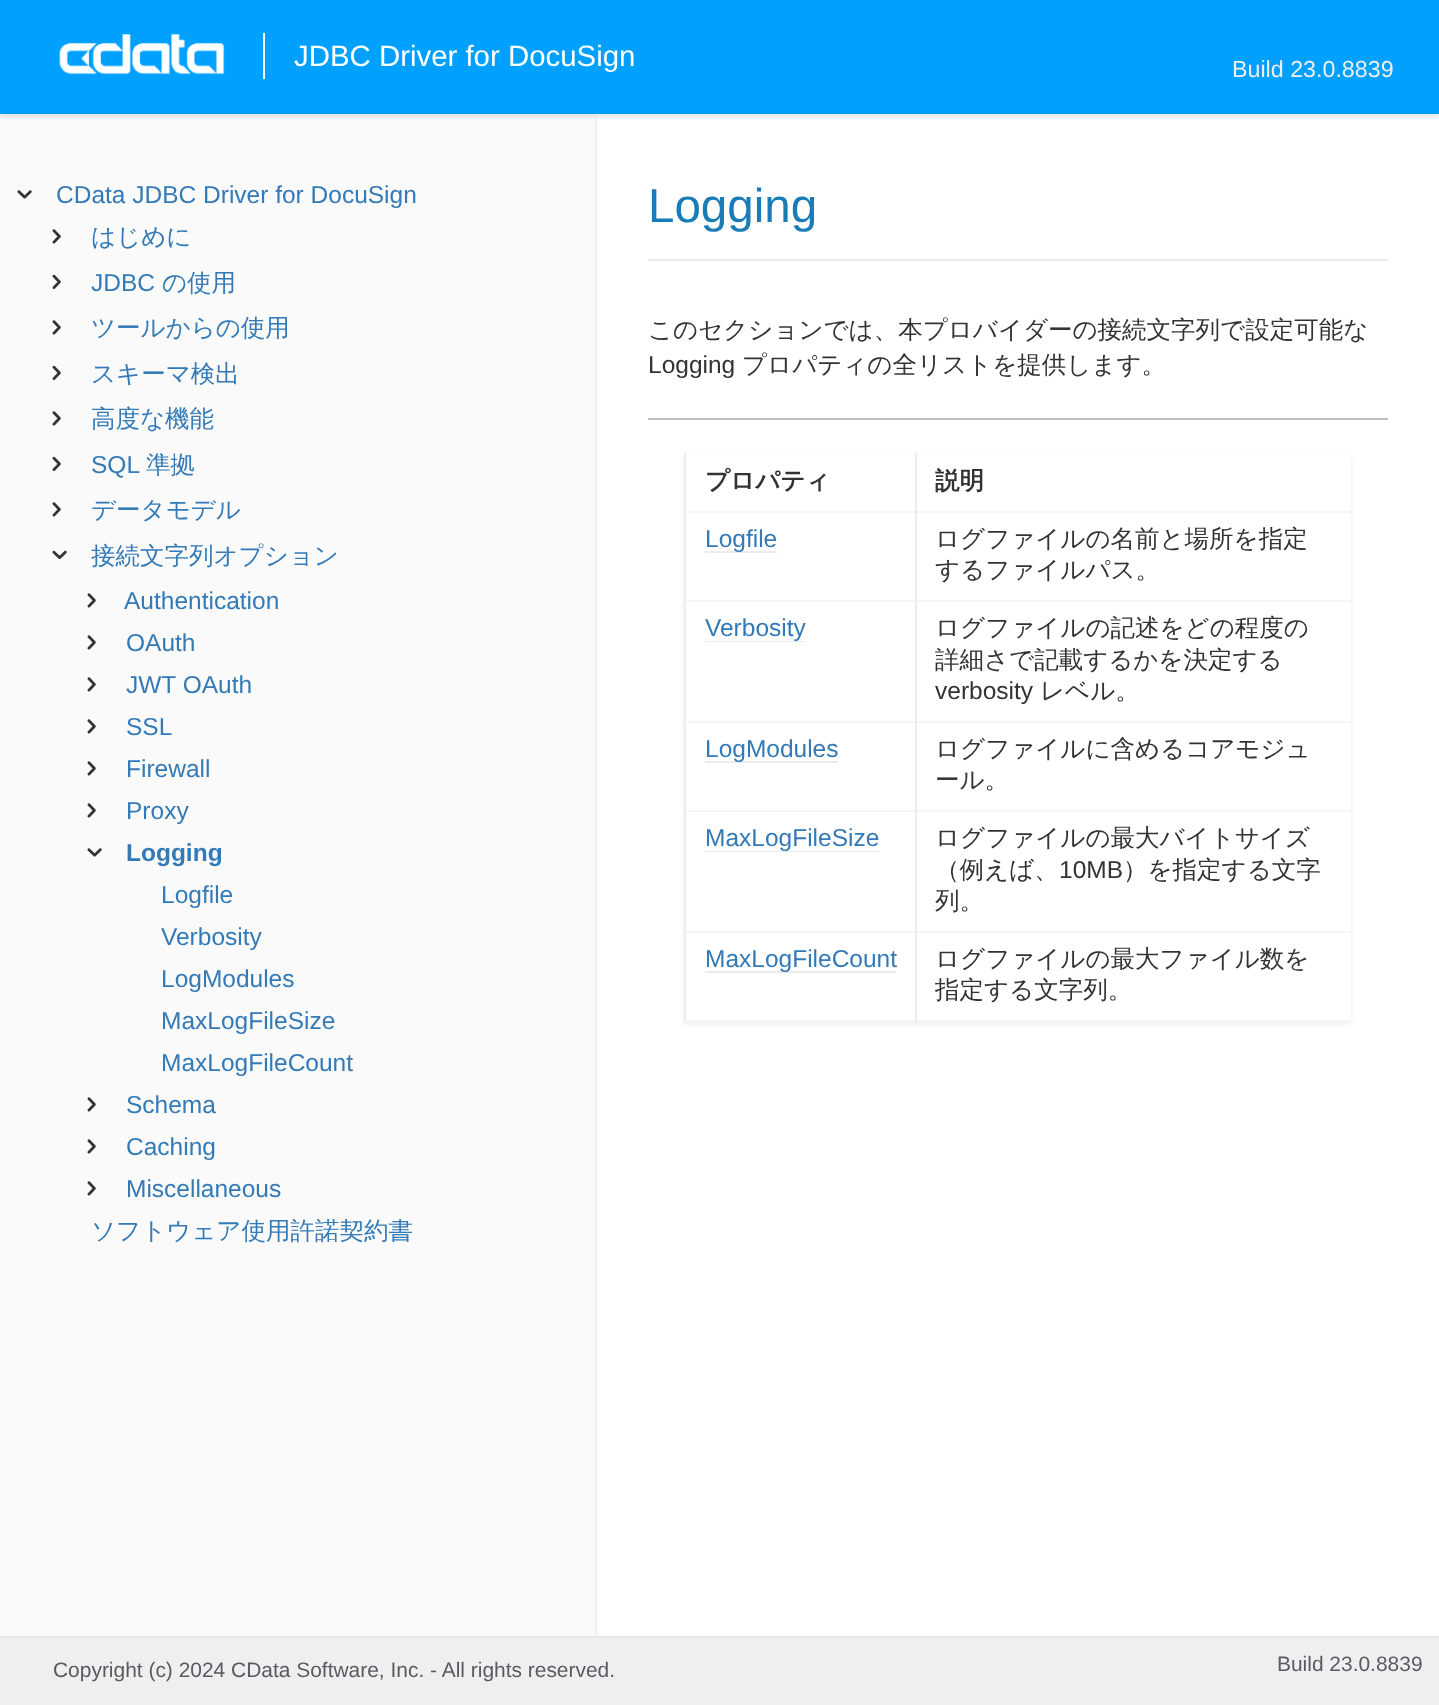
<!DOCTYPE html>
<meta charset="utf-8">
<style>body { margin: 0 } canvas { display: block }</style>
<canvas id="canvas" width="1439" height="1705"></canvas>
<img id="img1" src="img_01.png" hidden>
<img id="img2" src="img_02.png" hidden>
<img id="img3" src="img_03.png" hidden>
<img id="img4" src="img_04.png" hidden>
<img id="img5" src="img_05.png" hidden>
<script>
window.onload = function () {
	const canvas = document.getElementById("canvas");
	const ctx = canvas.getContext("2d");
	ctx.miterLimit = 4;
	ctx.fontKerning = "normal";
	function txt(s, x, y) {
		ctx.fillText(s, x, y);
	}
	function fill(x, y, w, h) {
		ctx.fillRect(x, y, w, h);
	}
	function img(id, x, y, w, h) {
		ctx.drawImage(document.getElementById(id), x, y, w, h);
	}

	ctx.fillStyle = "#FFFFFF";
	fill(0, 0, 1439, 1705);
	ctx.fillStyle = "#F7F5F7";
	fill(915, 511, 436, 2);
	fill(915, 600, 436, 2);
	fill(915, 721, 436, 2);
	fill(915, 810, 436, 2);
	fill(915, 931, 436, 2);
	ctx.fillStyle = "rgba(0, 0, 0, 0.15)";
	ctx.filter = "blur(2.5px)";
	ctx.beginPath();
	ctx.rect(0, 116, 595, 1522);
	ctx.fill();
	ctx.filter = "none";
	ctx.fillStyle = "#FAFAFA";
	fill(0, 114, 595, 1522);
	ctx.fillStyle = "rgba(0, 0, 0, 0.1)";
	ctx.filter = "blur(2px)";
	ctx.beginPath();
	ctx.rect(0, 4, 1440, 113);
	ctx.fill();
	ctx.filter = "none";
	ctx.fillStyle = "#00A0FF";
	fill(0, 0, 1439, 114);
	img("img1", 59, 34, 166, 41);
	ctx.fillStyle = "#FFFFFF";
	fill(263, 33, 2, 46);
	img("img2", 17, 190, 15, 9);
	img("img3", 52, 229, 9, 15);
	img("img4", 52, 274, 9, 15);
	img("img3", 52, 320, 9, 15);
	img("img4", 52, 365, 9, 15);
	img("img3", 52, 411, 9, 15);
	img("img4", 52, 456, 9, 15);
	img("img3", 52, 502, 9, 15);
	img("img5", 52, 550, 15, 10);
	img("img3", 87, 593, 9, 15);
	img("img3", 87, 635, 9, 15);
	img("img3", 87, 677, 9, 15);
	img("img3", 87, 719, 9, 15);
	img("img3", 87, 761, 9, 15);
	img("img3", 87, 803, 9, 15);
	img("img2", 87, 848, 15, 9);
	img("img3", 87, 1097, 9, 15);
	img("img3", 87, 1139, 9, 15);
	img("img3", 87, 1181, 9, 15);
	ctx.fillStyle = "#EEEBEE";
	fill(648, 259, 740, 2);
	ctx.fillStyle = "#C0C0C0";
	fill(648, 418, 740, 2);
	ctx.save();
	ctx.beginPath();
	ctx.moveTo(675, 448);
	ctx.lineTo(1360, 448);
	ctx.lineTo(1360, 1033);
	ctx.lineTo(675, 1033);
	ctx.closePath();
	ctx.moveTo(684, 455);
	ctx.lineTo(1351, 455);
	ctx.lineTo(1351, 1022);
	ctx.lineTo(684, 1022);
	ctx.closePath();
	ctx.clip("evenodd");
	ctx.fillStyle = "rgba(0, 0, 0, 0.07)";
	ctx.filter = "blur(2.5px)";
	ctx.beginPath();
	ctx.rect(684, 457, 667, 567);
	ctx.fill();
	ctx.filter = "none";
	ctx.restore();
	ctx.fillStyle = "#F7F5F7";
	fill(915, 1020, 436, 2);
	ctx.fillStyle = "#EEEBEE";
	fill(915, 453, 2, 569);
	ctx.fillStyle = "rgba(238, 235, 238, 0.5)";
	fill(684, 1020, 233, 2);
	ctx.fillStyle = "#EEEBEE";
	fill(684, 931, 2, 91);
	ctx.fillStyle = "rgba(238, 235, 238, 0.5)";
	fill(684, 931, 233, 2);
	ctx.fillStyle = "#EEEBEE";
	fill(684, 810, 2, 123);
	ctx.fillStyle = "rgba(238, 235, 238, 0.5)";
	fill(684, 810, 233, 2);
	ctx.fillStyle = "#EEEBEE";
	fill(684, 721, 2, 91);
	ctx.fillStyle = "rgba(238, 235, 238, 0.5)";
	fill(684, 721, 233, 2);
	ctx.fillStyle = "#EEEBEE";
	fill(684, 600, 2, 123);
	ctx.fillStyle = "rgba(238, 235, 238, 0.5)";
	fill(684, 600, 233, 2);
	ctx.fillStyle = "#EEEBEE";
	fill(684, 511, 2, 91);
	ctx.fillStyle = "rgba(238, 235, 238, 0.5)";
	fill(684, 511, 233, 2);
	ctx.fillStyle = "#EEEBEE";
	fill(684, 453, 2, 60);
	fill(705, 551, 72, 2);
	fill(705, 641, 100, 1);
	fill(705, 761, 133, 2);
	fill(705, 851, 174, 1);
	fill(705, 971, 191, 2);
	ctx.fillStyle = "#EFEFEF";
	fill(0, 1638, 1439, 67);
	ctx.fillStyle = "#E8E8E8";
	fill(0, 1636, 1439, 2);
	ctx.font = "29.4px Liberation Sans";
	ctx.fillStyle = "#FFFFFF";
	txt("JDBC Driver for DocuSign", 294, 66);
	ctx.font = "23.25px Liberation Sans";
	ctx.fillStyle = "#EFEFEF";
	txt("Build 23.0.8839", 1232, 77);
	ctx.font = "24.5px Liberation Sans";
	ctx.fillStyle = "#337AB7";
	txt("CData JDBC Driver for DocuSign", 56, 203);
	ctx.font = "500 24.5px WenQuanYi Zen Hei";
	txt("はじめに", 91, 245);
	ctx.font = "24.5px Liberation Sans";
	txt("JDBC", 91, 291);
	ctx.font = "500 24.5px WenQuanYi Zen Hei";
	txt("の使用", 162, 291);
	txt("ツールからの使用", 91, 336);
	txt("スキーマ検出", 91, 382);
	txt("高度な機能", 91, 427);
	ctx.font = "24.5px Liberation Sans";
	txt("SQL", 91, 473);
	ctx.font = "500 24.5px WenQuanYi Zen Hei";
	txt("準拠", 146, 473);
	txt("データモデル", 91, 518);
	txt("接続文字列オプション", 91, 564);
	ctx.font = "24.5px Liberation Sans";
	txt("Authentication", 124, 609);
	txt("OAuth", 126, 651);
	txt("JWT OAuth", 126, 693);
	txt("SSL", 126, 735);
	txt("Firewall", 126, 777);
	txt("Proxy", 126, 819);
	ctx.font = "bold 24.5px Liberation Sans";
	txt("Logging", 126, 861);
	ctx.font = "24.5px Liberation Sans";
	txt("Logfile", 161, 903);
	txt("Verbosity", 161, 945);
	txt("LogModules", 161, 987);
	txt("MaxLogFileSize", 161, 1029);
	txt("MaxLogFileCount", 161, 1071);
	txt("Schema", 126, 1113);
	txt("Caching", 126, 1155);
	txt("Miscellaneous", 126, 1197);
	ctx.font = "500 24.5px WenQuanYi Zen Hei";
	txt("ソフトウェア使用許諾契約書", 91, 1239);
	ctx.font = "47.5px Liberation Sans";
	ctx.fillStyle = "#177CB8";
	txt("Logging", 648, 222);
	ctx.font = "500 24.5px WenQuanYi Zen Hei";
	ctx.fillStyle = "#333333";
	txt("このセクションでは、本プロバイダーの接続文字列で設定可能な", 648, 338);
	ctx.font = "24.5px Liberation Sans";
	txt("Logging", 648, 373);
	ctx.font = "500 24.5px WenQuanYi Zen Hei";
	txt("プロパティの全リストを提供します。", 742, 373);
	ctx.font = "bold 24.5px WenQuanYi Zen Hei";
	txt("プロパティ", 705, 489);
	txt("説明", 935, 489);
	ctx.font = "24.5px Liberation Sans";
	ctx.fillStyle = "#337AB7";
	txt("Logfile", 705, 547);
	ctx.font = "500 24.5px WenQuanYi Zen Hei";
	ctx.fillStyle = "#333333";
	txt("ログファイルの名前と場所を指定", 935, 547);
	txt("するファイルパス。", 935, 578);
	ctx.font = "24.5px Liberation Sans";
	ctx.fillStyle = "#337AB7";
	txt("Verbosity", 705, 636);
	ctx.font = "500 24.5px WenQuanYi Zen Hei";
	ctx.fillStyle = "#333333";
	txt("ログファイルの記述をどの程度の", 935, 636);
	txt("詳細さで記載するかを決定する", 935, 668);
	ctx.font = "24.5px Liberation Sans";
	txt("verbosity", 935, 699);
	ctx.font = "500 24.5px WenQuanYi Zen Hei";
	txt("レベル。", 1040, 699);
	ctx.font = "24.5px Liberation Sans";
	ctx.fillStyle = "#337AB7";
	txt("LogModules", 705, 757);
	ctx.font = "500 24.5px WenQuanYi Zen Hei";
	ctx.fillStyle = "#333333";
	txt("ログファイルに含めるコアモジュ", 935, 757);
	txt("ール。", 935, 788);
	ctx.font = "24.5px Liberation Sans";
	ctx.fillStyle = "#337AB7";
	txt("MaxLogFileSize", 705, 846);
	ctx.font = "500 24.5px WenQuanYi Zen Hei";
	ctx.fillStyle = "#333333";
	txt("ログファイルの最大バイトサイズ", 935, 846);
	txt("（例えば、", 935, 878);
	ctx.font = "24.5px Liberation Sans";
	txt("10MB", 1059, 878);
	ctx.font = "500 24.5px WenQuanYi Zen Hei";
	txt("）を指定する文字", 1123, 878);
	txt("列。", 935, 909);
	ctx.font = "24.5px Liberation Sans";
	ctx.fillStyle = "#337AB7";
	txt("MaxLogFileCount", 705, 967);
	ctx.font = "500 24.5px WenQuanYi Zen Hei";
	ctx.fillStyle = "#333333";
	txt("ログファイルの最大ファイル数を", 935, 967);
	txt("指定する文字列。", 935, 998);
	ctx.font = "20.95px Liberation Sans";
	ctx.fillStyle = "#5C5962";
	txt("Copyright (c) 2024 CData Software, Inc. - All rights reserved.", 53, 1677);
	txt("Build 23.0.8839", 1277, 1671);
};
</script>
